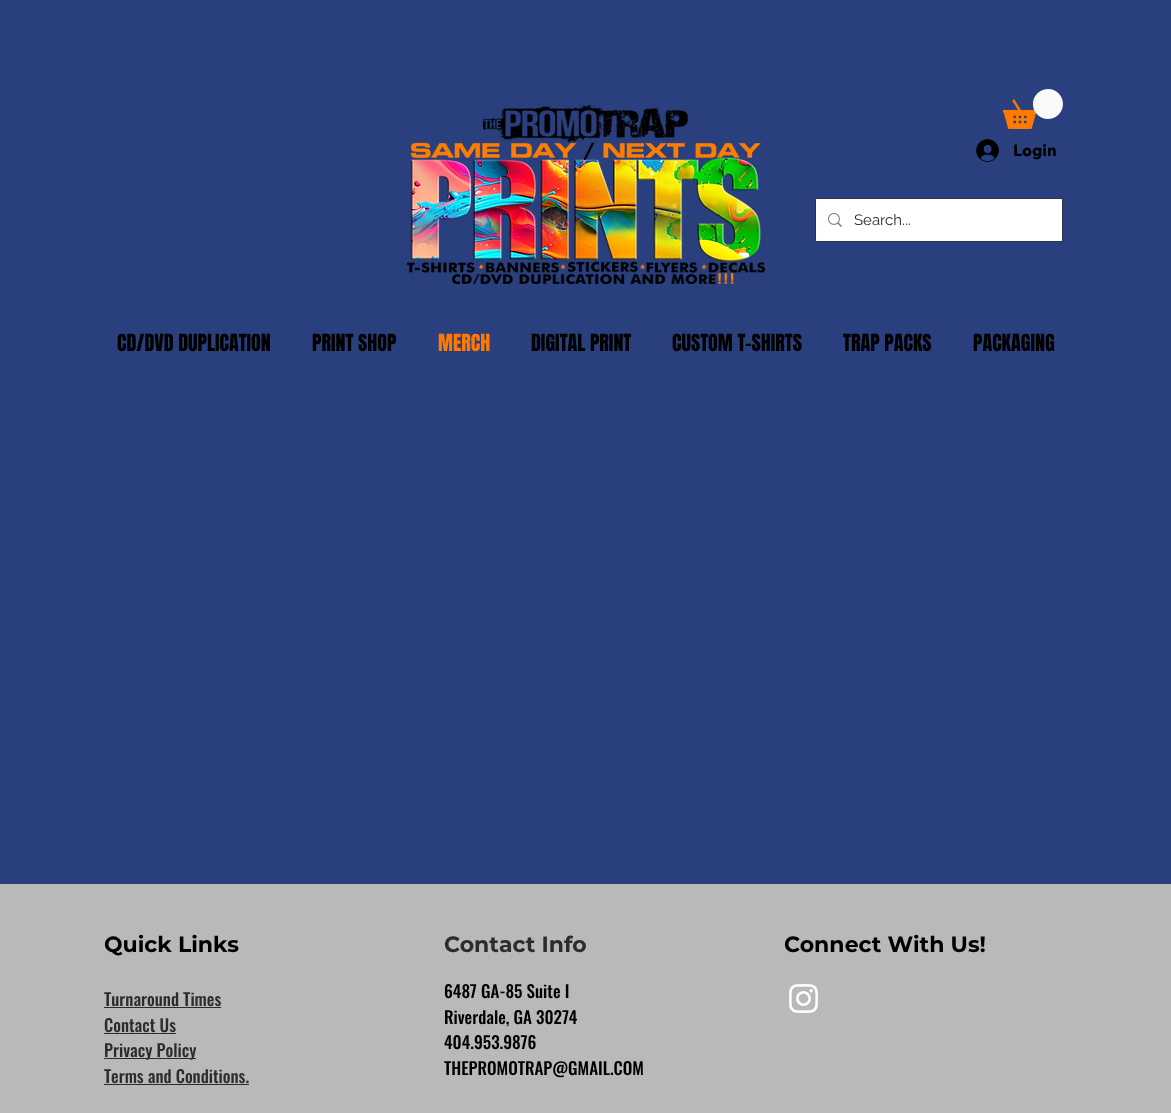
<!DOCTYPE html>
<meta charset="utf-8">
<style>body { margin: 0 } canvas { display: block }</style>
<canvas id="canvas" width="1171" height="1113"></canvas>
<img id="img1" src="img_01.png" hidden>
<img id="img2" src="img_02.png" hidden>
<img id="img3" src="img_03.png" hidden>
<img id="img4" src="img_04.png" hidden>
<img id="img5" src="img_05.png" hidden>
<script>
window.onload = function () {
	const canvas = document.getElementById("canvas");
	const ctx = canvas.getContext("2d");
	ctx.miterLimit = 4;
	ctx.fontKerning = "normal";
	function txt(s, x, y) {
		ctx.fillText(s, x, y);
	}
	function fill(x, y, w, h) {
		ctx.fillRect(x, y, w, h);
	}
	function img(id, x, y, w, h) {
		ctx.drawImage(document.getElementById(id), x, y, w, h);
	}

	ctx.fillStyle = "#2A3F7D";
	fill(0, 0, 1171, 1113);
	img("img1", 407, 103, 358, 181);
	img("img2", 1003, 89, 60, 40);
	img("img3", 976, 139, 23, 23);
	ctx.strokeStyle = "#2B344C";
	ctx.strokeRect(815.5, 198.5, 247, 43);
	ctx.fillStyle = "#FFFFFF";
	fill(816, 199, 246, 42);
	img("img4", 828, 213, 14, 14);
	ctx.fillStyle = "#B9B9B9";
	fill(0, 884, 1171, 229);
	ctx.fillStyle = "#2C2C2B";
	fill(104, 1007, 117, 1);
	fill(104, 1033, 72, 1);
	fill(104, 1058, 92, 1);
	fill(104, 1084, 145, 1);
	img("img5", 789, 984, 29, 29);
	ctx.font = "800 16px Wix Madefor Text";
	ctx.fillStyle = "#000000";
	txt("Login", 1013, 156);
	ctx.font = "15px Raleway";
	ctx.fillStyle = "#2C2C2B";
	txt("Search...", 854, 225);
	ctx.font = "20px Anton";
	ctx.fillStyle = "#000000";
	txt("CD/DVD DUPLICATION", 117, 351);
	txt("PRINT SHOP", 312, 351);
	ctx.fillStyle = "#FF7900";
	txt("MERCH", 438, 351);
	ctx.fillStyle = "#000000";
	txt("DIGITAL PRINT", 531, 351);
	txt("CUSTOM T-SHIRTS", 672, 351);
	txt("TRAP PACKS", 843, 351);
	txt("PACKAGING", 973, 351);
	ctx.font = "bold 22px Montserrat";
	txt("Quick Links", 104, 952);
	ctx.fillStyle = "#2C2C2B";
	txt("Contact Info", 444, 952);
	ctx.fillStyle = "#000000";
	txt("Connect With Us!", 784, 952);
	ctx.font = "500 17px Oswald";
	ctx.fillStyle = "#2C2C2B";
	txt("Turnaround Times", 104, 1006);
	txt("Contact Us", 104, 1032);
	txt("Privacy Policy", 104, 1057);
	txt("Terms and Conditions.", 104, 1083);
	ctx.fillStyle = "#000000";
	txt("6487 GA-85 Suite I", 444, 998);
	txt("Riverdale, GA 30274", 444, 1024);
	txt("404.953.9876", 444, 1049);
	txt("THEPROMOTRAP@GMAIL.COM", 444, 1075);
};
</script>
